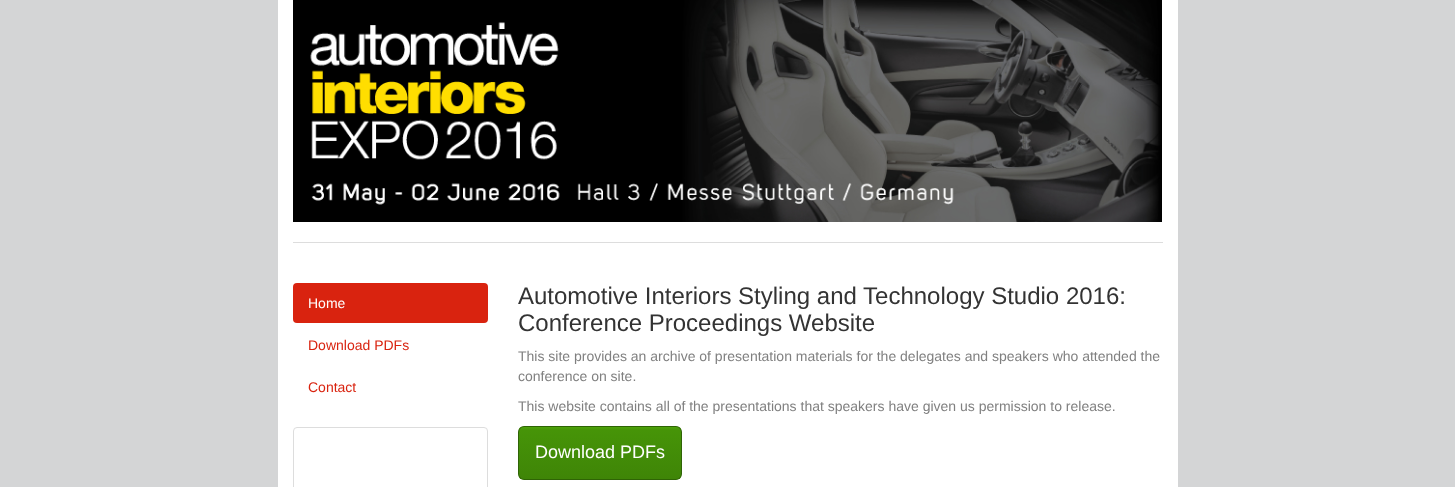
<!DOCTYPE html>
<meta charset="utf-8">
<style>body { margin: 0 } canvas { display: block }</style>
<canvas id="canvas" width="1455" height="487"></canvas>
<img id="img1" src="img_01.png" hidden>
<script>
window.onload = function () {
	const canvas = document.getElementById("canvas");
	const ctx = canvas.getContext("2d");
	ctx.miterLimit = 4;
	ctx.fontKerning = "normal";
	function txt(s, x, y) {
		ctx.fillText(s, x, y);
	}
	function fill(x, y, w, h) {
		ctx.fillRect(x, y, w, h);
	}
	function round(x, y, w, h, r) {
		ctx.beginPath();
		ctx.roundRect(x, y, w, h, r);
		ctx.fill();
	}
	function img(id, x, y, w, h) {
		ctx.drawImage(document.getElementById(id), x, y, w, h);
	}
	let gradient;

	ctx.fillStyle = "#D4D5D6";
	fill(0, 0, 1455, 487);
	ctx.fillStyle = "#FFFFFF";
	fill(278, 0, 900, 487);
	img("img1", 293, 0, 869, 222);
	ctx.fillStyle = "#DDDDDD";
	fill(293, 242, 870, 1);
	ctx.fillStyle = "#D9230F";
	round(293, 283, 195, 40, 4);
	ctx.beginPath();
	ctx.roundRect(293.5, 427.5, 194, 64, 3.5);
	ctx.strokeStyle = "#DDDDDD";
	ctx.stroke();
	ctx.save();
	ctx.beginPath();
	ctx.roundRect(518, 426, 164, 54, 6);
	ctx.clip();
	gradient = ctx.createLinearGradient(600, 427, 600, 479);
	gradient.addColorStop(0, "#4DA309");
	gradient.addColorStop(0.06, "#469408");
	gradient.addColorStop(1, "#3F8507");
	ctx.fillStyle = gradient;
	fill(519, 427, 162, 52);
	ctx.restore();
	ctx.beginPath();
	ctx.roundRect(518.5, 426.5, 163, 53, 5.5);
	ctx.strokeStyle = "#2F6405";
	ctx.stroke();
	ctx.font = "14px Liberation Sans";
	ctx.fillStyle = "#FFFFFF";
	txt("Home", 308, 308);
	ctx.fillStyle = "#D9230F";
	txt("Download PDFs", 308, 350);
	txt("Contact", 308, 392);
	ctx.font = "24px Liberation Sans";
	ctx.fillStyle = "#333333";
	txt("Automotive Interiors Styling and Technology Studio 2016:", 518, 304);
	txt("Conference Proceedings Website", 518, 331);
	ctx.font = "14px Liberation Sans";
	ctx.fillStyle = "#808080";
	txt("This site provides an archive of presentation materials for the delegates and speakers who attended the", 518, 361);
	txt("conference on site.", 518, 381);
	txt("This website contains all of the presentations that speakers have given us permission to release.", 518, 411);
	ctx.font = "18px Liberation Sans";
	ctx.fillStyle = "#FFFFFF";
	txt("Download PDFs", 535, 458);
};
</script>
